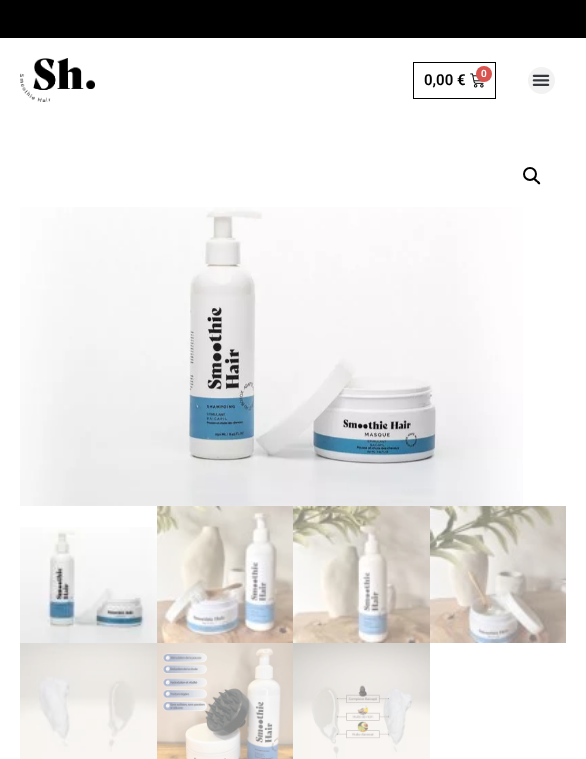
<!DOCTYPE html>
<meta charset="utf-8">
<style>body { margin: 0 } canvas { display: block }</style>
<canvas id="canvas" width="586" height="759"></canvas>
<img id="img1" src="img_01.png" hidden>
<img id="img2" src="img_02.png" hidden>
<img id="img3" src="img_03.png" hidden>
<img id="img4" src="img_04.png" hidden>
<img id="img5" src="img_05.png" hidden>
<img id="img6" src="img_06.png" hidden>
<img id="img7" src="img_07.png" hidden>
<img id="img8" src="img_08.png" hidden>
<img id="img9" src="img_09.png" hidden>
<img id="img10" src="img_10.png" hidden>
<img id="img11" src="img_11.png" hidden>
<script>
window.onload = function () {
	const canvas = document.getElementById("canvas");
	const ctx = canvas.getContext("2d");
	ctx.miterLimit = 4;
	ctx.fontKerning = "normal";
	function txt(s, x, y) {
		ctx.fillText(s, x, y);
	}
	function fill(x, y, w, h) {
		ctx.fillRect(x, y, w, h);
	}
	function img(id, x, y, w, h) {
		ctx.drawImage(document.getElementById(id), x, y, w, h);
	}

	ctx.fillStyle = "#FFFFFF";
	fill(0, 0, 586, 759);
	ctx.fillStyle = "#000000";
	fill(0, 0, 586, 38);
	img("img1", 20, 58, 75, 44);
	ctx.strokeStyle = "#000000";
	ctx.strokeRect(413.5, 62.5, 82, 36);
	img("img2", 470, 73, 14, 15);
	ctx.fillStyle = "#D9534F";
	ctx.beginPath();
	ctx.arc(484, 74, 8, 0, Math.PI * 2);
	ctx.fill();
	ctx.fillStyle = "#F2F2F2";
	ctx.beginPath();
	ctx.arc(541.5, 80.5, 13.5, 0, Math.PI * 2);
	ctx.fill();
	img("img3", 532, 74, 18, 12);
	ctx.beginPath();
	ctx.arc(530, 174, 6, 0, Math.PI * 2);
	ctx.lineWidth = 2;
	ctx.stroke();
	ctx.fillStyle = "#000000";
	ctx.beginPath();
	ctx.moveTo(534, 178.5);
	ctx.bezierCurveTo(535.5, 177.5, 537, 180, 537.5, 180.5);
	ctx.bezierCurveTo(538.5, 181, 541, 183, 540, 184);
	ctx.bezierCurveTo(538.5, 185.5, 537, 182.5, 536.5, 182);
	ctx.bezierCurveTo(535.5, 181.5, 533, 179.5, 534, 178.5);
	ctx.closePath();
	ctx.fill();
	img("img4", 20, 207, 503, 299);
	img("img5", 20, 527, 137, 116);
	img("img6", 157, 506, 136, 137);
	img("img7", 293, 506, 137, 137);
	img("img8", 430, 506, 136, 137);
	img("img9", 20, 643, 137, 116);
	img("img10", 157, 643, 136, 116);
	img("img11", 293, 643, 137, 116);
	ctx.font = "600 15px Roboto";
	txt("0,00 €", 424, 85);
	ctx.font = "600 10px Roboto";
	ctx.fillStyle = "#FFFFFF";
	txt("0", 481, 77);
};
</script>
